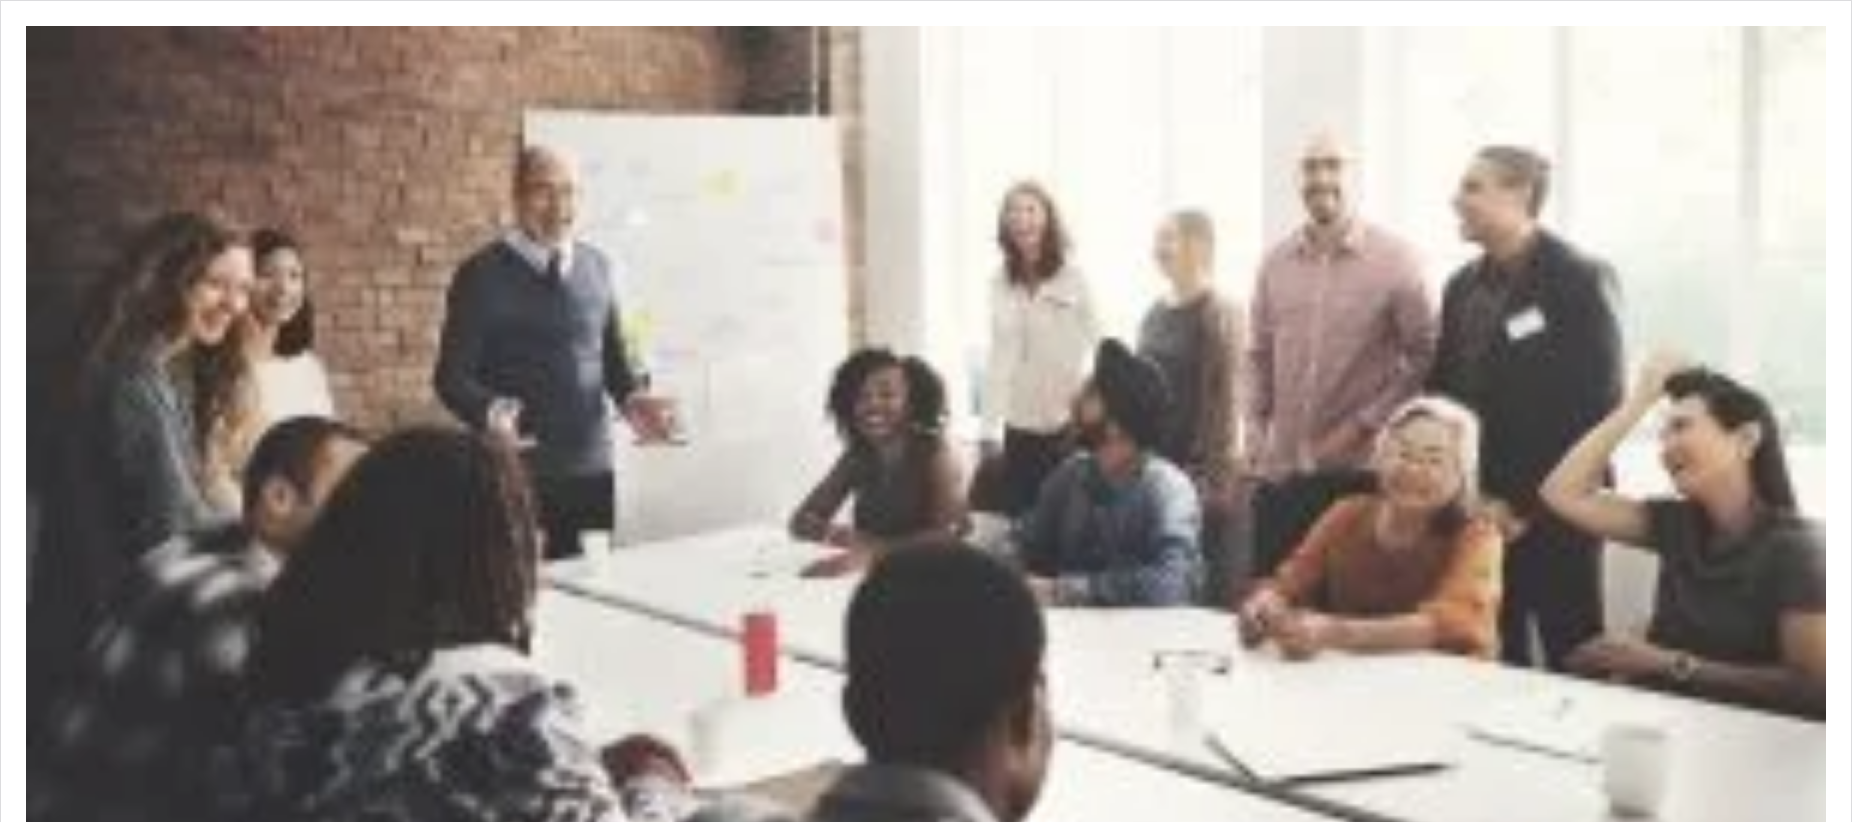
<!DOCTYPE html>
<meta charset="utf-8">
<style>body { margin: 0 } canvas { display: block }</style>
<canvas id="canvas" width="1852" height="822"></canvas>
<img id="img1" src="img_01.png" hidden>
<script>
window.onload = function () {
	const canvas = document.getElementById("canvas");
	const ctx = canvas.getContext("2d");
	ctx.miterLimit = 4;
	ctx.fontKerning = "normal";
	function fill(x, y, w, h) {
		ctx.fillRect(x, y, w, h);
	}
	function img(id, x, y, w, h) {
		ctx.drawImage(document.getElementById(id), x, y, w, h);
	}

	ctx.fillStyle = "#FFFFFF";
	fill(0, 0, 1852, 822);
	ctx.strokeStyle = "#DCDCDE";
	ctx.strokeRect(0.5, 0.5, 1851, 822);
	img("img1", 26, 26, 1800, 796);
};
</script>
